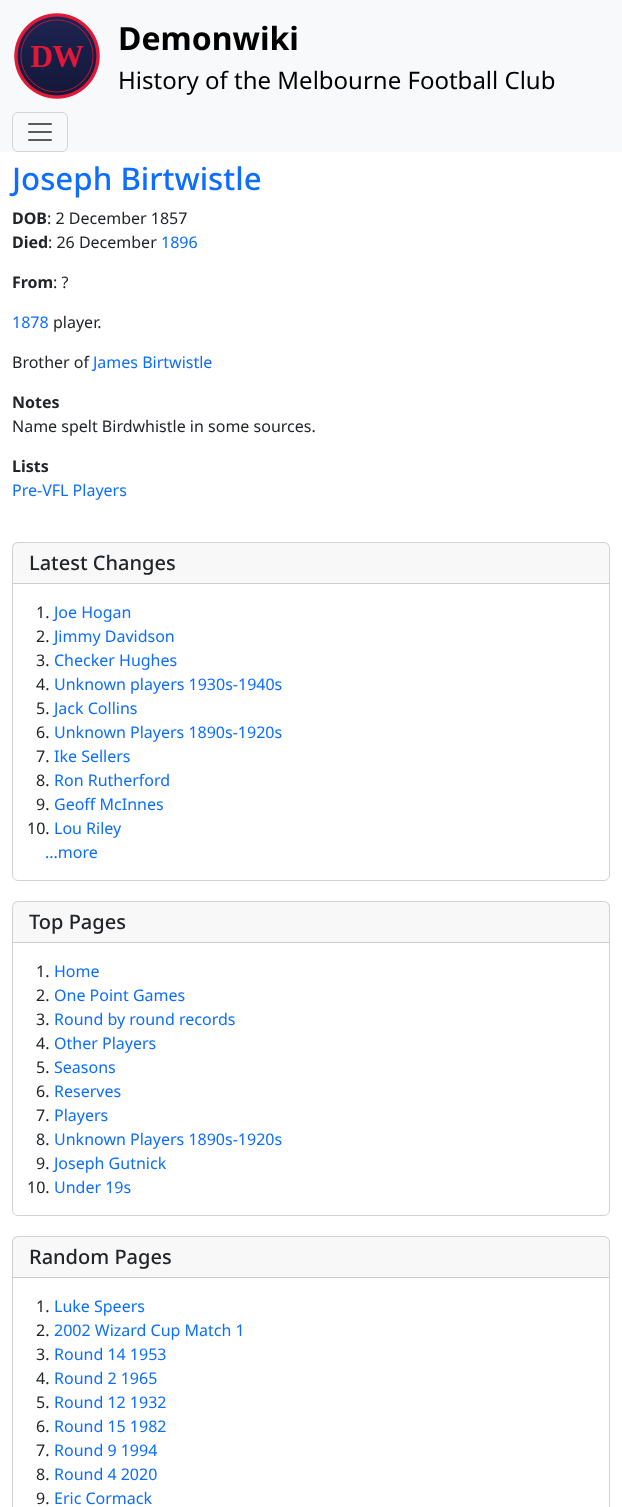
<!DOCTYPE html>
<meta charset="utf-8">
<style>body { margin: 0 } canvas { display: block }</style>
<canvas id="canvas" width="622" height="1507"></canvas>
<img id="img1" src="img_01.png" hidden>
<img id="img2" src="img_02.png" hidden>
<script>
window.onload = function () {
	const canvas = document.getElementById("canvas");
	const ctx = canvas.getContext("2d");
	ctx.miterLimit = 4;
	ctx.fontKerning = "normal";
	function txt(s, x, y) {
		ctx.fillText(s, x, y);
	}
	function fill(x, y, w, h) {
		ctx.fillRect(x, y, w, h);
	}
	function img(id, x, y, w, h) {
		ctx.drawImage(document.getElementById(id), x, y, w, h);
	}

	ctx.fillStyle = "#FFFFFF";
	fill(0, 0, 622, 1507);
	ctx.fillStyle = "#F8F9FA";
	fill(0, 0, 622, 152);
	img("img1", 14, 13, 86, 86);
	ctx.beginPath();
	ctx.roundRect(12.5, 112.5, 55, 39, 5.5);
	ctx.strokeStyle = "#D3D4D5";
	ctx.stroke();
	img("img2", 28, 123, 24, 18);
	ctx.beginPath();
	ctx.roundRect(12.5, 542.5, 597, 338, 5.5);
	ctx.strokeStyle = "#D2D2D2";
	ctx.stroke();
	ctx.fillStyle = "rgba(33, 37, 41, 0.03)";
	fill(13, 543, 596, 40);
	ctx.fillStyle = "#CDCDCD";
	fill(13, 583, 596, 1);
	ctx.beginPath();
	ctx.roundRect(12.5, 901.5, 597, 314, 5.5);
	ctx.stroke();
	ctx.fillStyle = "rgba(33, 37, 41, 0.03)";
	fill(13, 902, 596, 40);
	ctx.fillStyle = "#CDCDCD";
	fill(13, 942, 596, 1);
	ctx.beginPath();
	ctx.roundRect(12.5, 1236.5, 597, 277, 5.5);
	ctx.stroke();
	ctx.fillStyle = "rgba(33, 37, 41, 0.03)";
	fill(13, 1237, 596, 40);
	ctx.fillStyle = "#CDCDCD";
	fill(13, 1277, 596, 1);
	ctx.font = "bold 32px Noto Sans";
	ctx.fillStyle = "#000000";
	txt("Demonwiki", 118, 50);
	ctx.font = "24px Noto Sans";
	txt("History of the Melbourne Football Club", 118, 89);
	ctx.font = "500 31.25px Noto Sans";
	ctx.fillStyle = "#0D6EFD";
	txt("Joseph Birtwistle", 12, 190);
	ctx.font = "bold 16px Noto Sans";
	ctx.fillStyle = "#212529";
	txt("DOB", 12, 224);
	ctx.font = "16px Noto Sans";
	txt(": 2 December 1857", 47, 224);
	ctx.font = "bold 16px Noto Sans";
	txt("Died", 12, 248);
	ctx.font = "16px Noto Sans";
	txt(": 26 December", 48, 248);
	ctx.fillStyle = "#0D6EFD";
	txt("1896", 161, 248);
	ctx.font = "bold 16px Noto Sans";
	ctx.fillStyle = "#212529";
	txt("From", 12, 288);
	ctx.font = "16px Noto Sans";
	txt(": ?", 53, 288);
	ctx.fillStyle = "#0D6EFD";
	txt("1878", 12, 328);
	ctx.fillStyle = "#212529";
	txt("player.", 53, 328);
	txt("Brother of", 12, 368);
	ctx.fillStyle = "#0D6EFD";
	txt("James Birtwistle", 93, 368);
	ctx.font = "bold 16px Noto Sans";
	ctx.fillStyle = "#212529";
	txt("Notes", 12, 408);
	ctx.font = "16px Noto Sans";
	txt("Name spelt Birdwhistle in some sources.", 12, 432);
	ctx.font = "bold 16px Noto Sans";
	txt("Lists", 12, 472);
	ctx.font = "16px Noto Sans";
	ctx.fillStyle = "#0D6EFD";
	txt("Pre-VFL Players", 12, 496);
	ctx.font = "500 20px Noto Sans";
	ctx.fillStyle = "#212529";
	txt("Latest Changes", 29, 570);
	ctx.font = "16px Noto Sans";
	txt("1.", 36, 618);
	ctx.fillStyle = "#0D6EFD";
	txt("Joe Hogan", 54, 618);
	ctx.fillStyle = "#212529";
	txt("2.", 36, 642);
	ctx.fillStyle = "#0D6EFD";
	txt("Jimmy Davidson", 54, 642);
	ctx.fillStyle = "#212529";
	txt("3.", 36, 666);
	ctx.fillStyle = "#0D6EFD";
	txt("Checker Hughes", 54, 666);
	ctx.fillStyle = "#212529";
	txt("4.", 36, 690);
	ctx.fillStyle = "#0D6EFD";
	txt("Unknown players 1930s-1940s", 54, 690);
	ctx.fillStyle = "#212529";
	txt("5.", 36, 714);
	ctx.fillStyle = "#0D6EFD";
	txt("Jack Collins", 54, 714);
	ctx.fillStyle = "#212529";
	txt("6.", 36, 738);
	ctx.fillStyle = "#0D6EFD";
	txt("Unknown Players 1890s-1920s", 54, 738);
	ctx.fillStyle = "#212529";
	txt("7.", 36, 762);
	ctx.fillStyle = "#0D6EFD";
	txt("Ike Sellers", 54, 762);
	ctx.fillStyle = "#212529";
	txt("8.", 36, 786);
	ctx.fillStyle = "#0D6EFD";
	txt("Ron Rutherford", 54, 786);
	ctx.fillStyle = "#212529";
	txt("9.", 36, 810);
	ctx.fillStyle = "#0D6EFD";
	txt("Geoff McInnes", 54, 810);
	ctx.fillStyle = "#212529";
	txt("10.", 27, 834);
	ctx.fillStyle = "#0D6EFD";
	txt("Lou Riley", 54, 834);
	txt("...more", 45, 858);
	ctx.font = "500 20px Noto Sans";
	ctx.fillStyle = "#212529";
	txt("Top Pages", 29, 929);
	ctx.font = "16px Noto Sans";
	txt("1.", 36, 977);
	ctx.fillStyle = "#0D6EFD";
	txt("Home", 54, 977);
	ctx.fillStyle = "#212529";
	txt("2.", 36, 1001);
	ctx.fillStyle = "#0D6EFD";
	txt("One Point Games", 54, 1001);
	ctx.fillStyle = "#212529";
	txt("3.", 36, 1025);
	ctx.fillStyle = "#0D6EFD";
	txt("Round by round records", 54, 1025);
	ctx.fillStyle = "#212529";
	txt("4.", 36, 1049);
	ctx.fillStyle = "#0D6EFD";
	txt("Other Players", 54, 1049);
	ctx.fillStyle = "#212529";
	txt("5.", 36, 1073);
	ctx.fillStyle = "#0D6EFD";
	txt("Seasons", 54, 1073);
	ctx.fillStyle = "#212529";
	txt("6.", 36, 1097);
	ctx.fillStyle = "#0D6EFD";
	txt("Reserves", 54, 1097);
	ctx.fillStyle = "#212529";
	txt("7.", 36, 1121);
	ctx.fillStyle = "#0D6EFD";
	txt("Players", 54, 1121);
	ctx.fillStyle = "#212529";
	txt("8.", 36, 1145);
	ctx.fillStyle = "#0D6EFD";
	txt("Unknown Players 1890s-1920s", 54, 1145);
	ctx.fillStyle = "#212529";
	txt("9.", 36, 1169);
	ctx.fillStyle = "#0D6EFD";
	txt("Joseph Gutnick", 54, 1169);
	ctx.fillStyle = "#212529";
	txt("10.", 27, 1193);
	ctx.fillStyle = "#0D6EFD";
	txt("Under 19s", 54, 1193);
	ctx.font = "500 20px Noto Sans";
	ctx.fillStyle = "#212529";
	txt("Random Pages", 29, 1264);
	ctx.font = "16px Noto Sans";
	txt("1.", 36, 1312);
	ctx.fillStyle = "#0D6EFD";
	txt("Luke Speers", 54, 1312);
	ctx.fillStyle = "#212529";
	txt("2.", 36, 1336);
	ctx.fillStyle = "#0D6EFD";
	txt("2002 Wizard Cup Match 1", 54, 1336);
	ctx.fillStyle = "#212529";
	txt("3.", 36, 1360);
	ctx.fillStyle = "#0D6EFD";
	txt("Round 14 1953", 54, 1360);
	ctx.fillStyle = "#212529";
	txt("4.", 36, 1384);
	ctx.fillStyle = "#0D6EFD";
	txt("Round 2 1965", 54, 1384);
	ctx.fillStyle = "#212529";
	txt("5.", 36, 1408);
	ctx.fillStyle = "#0D6EFD";
	txt("Round 12 1932", 54, 1408);
	ctx.fillStyle = "#212529";
	txt("6.", 36, 1432);
	ctx.fillStyle = "#0D6EFD";
	txt("Round 15 1982", 54, 1432);
	ctx.fillStyle = "#212529";
	txt("7.", 36, 1456);
	ctx.fillStyle = "#0D6EFD";
	txt("Round 9 1994", 54, 1456);
	ctx.fillStyle = "#212529";
	txt("8.", 36, 1480);
	ctx.fillStyle = "#0D6EFD";
	txt("Round 4 2020", 54, 1480);
	ctx.fillStyle = "#212529";
	txt("9.", 36, 1504);
	ctx.fillStyle = "#0D6EFD";
	txt("Eric Cormack", 54, 1504);
};
</script>
